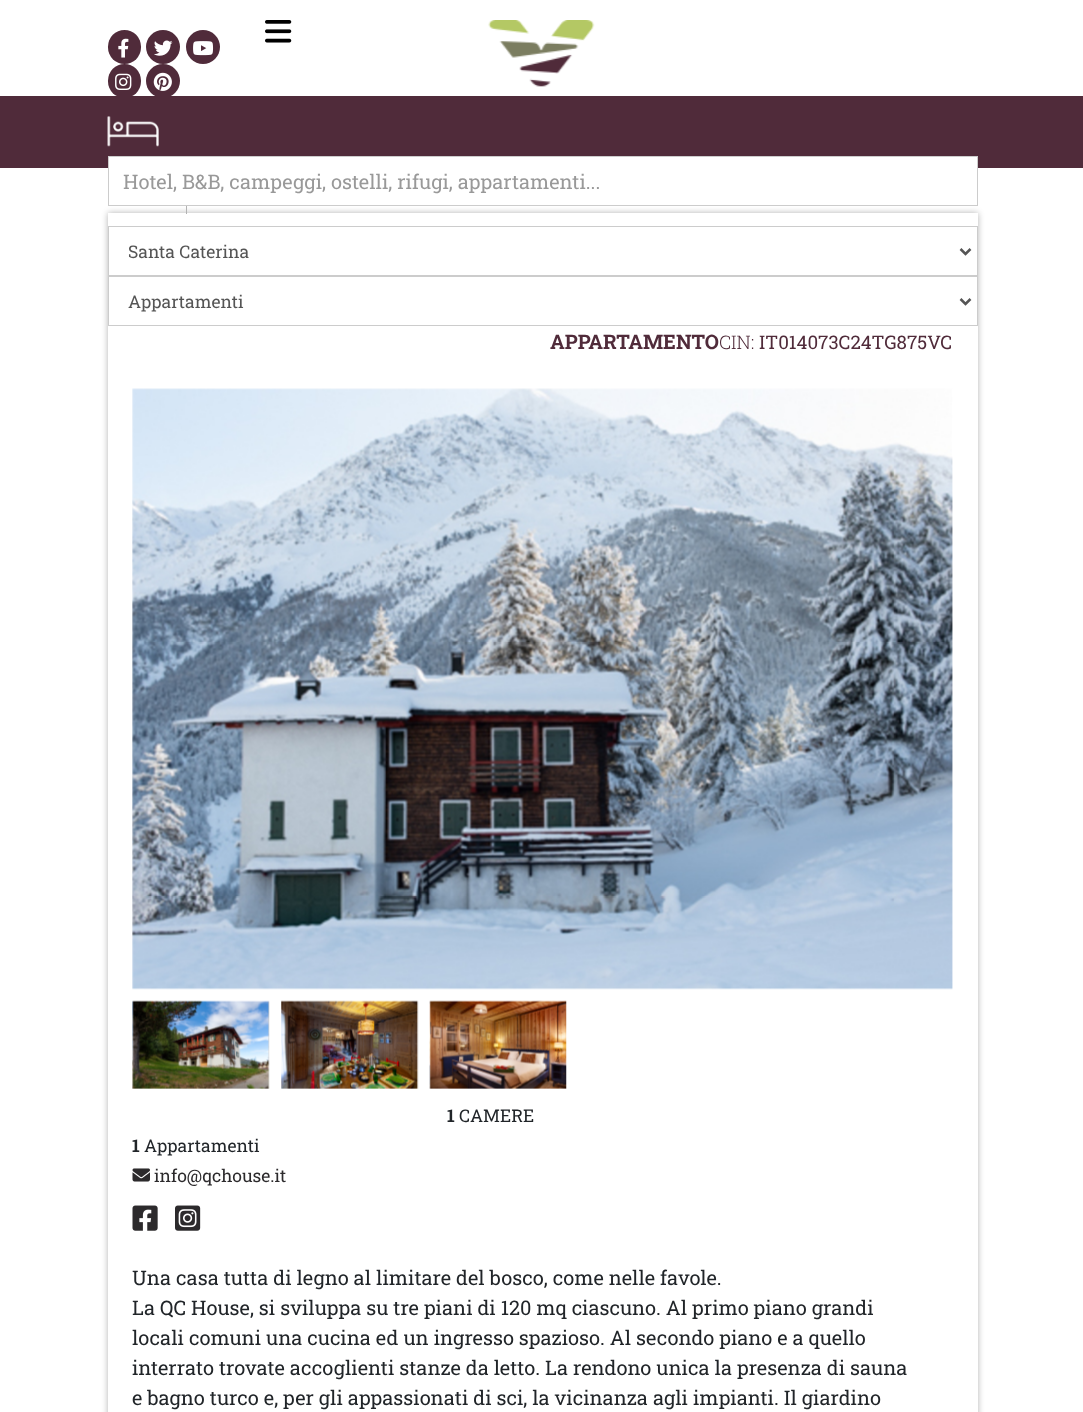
<!DOCTYPE html>
<meta charset="utf-8">
<style>body { margin: 0 } canvas { display: block }</style>
<canvas id="canvas" width="1083" height="1412"></canvas>
<img id="img1" src="img_01.png" hidden>
<img id="img2" src="img_02.png" hidden>
<img id="img3" src="img_03.png" hidden>
<img id="img4" src="img_04.png" hidden>
<img id="img5" src="img_05.png" hidden>
<img id="img6" src="img_06.png" hidden>
<img id="img7" src="img_07.png" hidden>
<img id="img8" src="img_08.png" hidden>
<img id="img9" src="img_09.png" hidden>
<img id="img10" src="img_10.png" hidden>
<img id="img11" src="img_11.png" hidden>
<img id="img12" src="img_12.png" hidden>
<img id="img13" src="img_13.png" hidden>
<img id="img14" src="img_14.png" hidden>
<img id="img15" src="img_15.png" hidden>
<script>
window.onload = function () {
	const canvas = document.getElementById("canvas");
	const ctx = canvas.getContext("2d");
	ctx.miterLimit = 4;
	ctx.fontKerning = "normal";
	function txt(s, x, y) {
		ctx.fillText(s, x, y);
	}
	function fill(x, y, w, h) {
		ctx.fillRect(x, y, w, h);
	}
	function round(x, y, w, h, r) {
		ctx.beginPath();
		ctx.roundRect(x, y, w, h, r);
		ctx.fill();
	}
	function img(id, x, y, w, h) {
		ctx.drawImage(document.getElementById(id), x, y, w, h);
	}

	ctx.fillStyle = "#FFFFFF";
	fill(0, 0, 1083, 1412);
	ctx.fillStyle = "#502B3A";
	round(108, 30, 33, 34, 16.5);
	img("img1", 118, 38, 11, 20);
	ctx.beginPath();
	ctx.arc(163, 47, 17, 0, Math.PI * 2);
	ctx.fill();
	img("img2", 154, 40, 19, 16);
	ctx.beginPath();
	ctx.arc(203, 47, 17, 0, Math.PI * 2);
	ctx.fill();
	img("img3", 193, 41, 21, 15);
	round(108, 64, 33, 34, 16.5);
	img("img4", 115, 73, 17, 17);
	ctx.beginPath();
	ctx.arc(163, 81, 17, 0, Math.PI * 2);
	ctx.fill();
	img("img5", 153, 72, 19, 19);
	img("img6", 265, 20, 27, 23);
	img("img7", 488, 20, 107, 67);
	ctx.save();
	ctx.beginPath();
	ctx.moveTo(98, 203);
	ctx.lineTo(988, 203);
	ctx.lineTo(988, 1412);
	ctx.lineTo(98, 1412);
	ctx.closePath();
	ctx.moveTo(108, 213);
	ctx.lineTo(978, 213);
	ctx.lineTo(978, 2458);
	ctx.lineTo(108, 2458);
	ctx.closePath();
	ctx.clip("evenodd");
	ctx.fillStyle = "rgba(0, 0, 0, 0.3)";
	ctx.filter = "blur(3px)";
	ctx.beginPath();
	ctx.rect(108, 213, 870, 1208);
	ctx.fill();
	ctx.filter = "none";
	ctx.restore();
	ctx.fillStyle = "#B2B2B2";
	fill(186, 206, 1, 8);
	ctx.fillStyle = "#502B3A";
	fill(0, 96, 1083, 72);
	img("img8", 107, 116, 52, 31);
	ctx.fillStyle = "#FFFFFF";
	fill(109, 157, 868, 11);
	ctx.strokeStyle = "#CCCCCC";
	ctx.strokeRect(108.5, 156.5, 869, 49);
	ctx.strokeRect(108.5, 226.5, 869, 49);
	ctx.beginPath();
	ctx.moveTo(960.5, 249);
	ctx.lineTo(965.5, 254);
	ctx.lineTo(970.5, 249);
	ctx.strokeStyle = "#555555";
	ctx.lineWidth = 2.5;
	ctx.stroke();
	ctx.strokeStyle = "#CCCCCC";
	ctx.lineWidth = 1;
	ctx.strokeRect(108.5, 276.5, 869, 49);
	ctx.beginPath();
	ctx.moveTo(960.5, 299);
	ctx.lineTo(965.5, 304);
	ctx.lineTo(970.5, 299);
	ctx.strokeStyle = "#555555";
	ctx.lineWidth = 2.5;
	ctx.stroke();
	img("img9", 132, 388, 821, 602);
	img("img10", 132, 1000, 138, 89);
	img("img11", 281, 1000, 138, 89);
	img("img12", 429, 1000, 138, 89);
	img("img13", 132, 1168, 18, 14);
	img("img14", 132, 1205, 26, 26);
	img("img15", 175, 1205, 26, 26);
	ctx.font = "20px Roboto Slab";
	ctx.fillStyle = "#999999";
	txt("Hotel, B&B, campeggi, ostelli, rifugi, appartamenti...", 123, 189);
	ctx.font = "17.5px Roboto Slab";
	ctx.fillStyle = "#555555";
	txt("Santa Caterina", 128, 258);
	txt("Appartamenti", 128, 308);
	ctx.font = "bold 20px Roboto Slab";
	ctx.fillStyle = "#502B3A";
	txt("APPARTAMENTO", 550, 349);
	ctx.font = "300 18.75px Roboto Slab";
	txt("CIN:", 719, 349);
	ctx.font = "18.75px Roboto Slab";
	txt("IT014073C24TG875VC", 759, 349);
	ctx.font = "bold 17.5px Roboto Slab";
	ctx.fillStyle = "#212529";
	txt("1", 447, 1122);
	ctx.font = "17.5px Roboto Slab";
	txt("CAMERE", 459, 1122);
	ctx.font = "bold 17.5px Roboto Slab";
	txt("1", 132, 1152);
	ctx.font = "17.5px Roboto Slab";
	txt("Appartamenti", 144, 1152);
	ctx.fillStyle = "#2C2A2C";
	txt("info@qchouse.it", 154, 1182);
	ctx.font = "20px Roboto Slab";
	ctx.fillStyle = "#212529";
	txt("Una casa tutta di legno al limitare del bosco, come nelle favole.", 132, 1285);
	txt("La QC House, si sviluppa su tre piani di 120 mq ciascuno. Al primo piano grandi", 132, 1315);
	txt("locali comuni una cucina ed un ingresso spazioso. Al secondo piano e a quello", 132, 1345);
	txt("interrato trovate accoglienti stanze da letto. La rendono unica la presenza di sauna", 132, 1375);
	txt("e bagno turco e, per gli appassionati di sci, la vicinanza agli impianti. Il giardino", 132, 1405);
};
</script>
